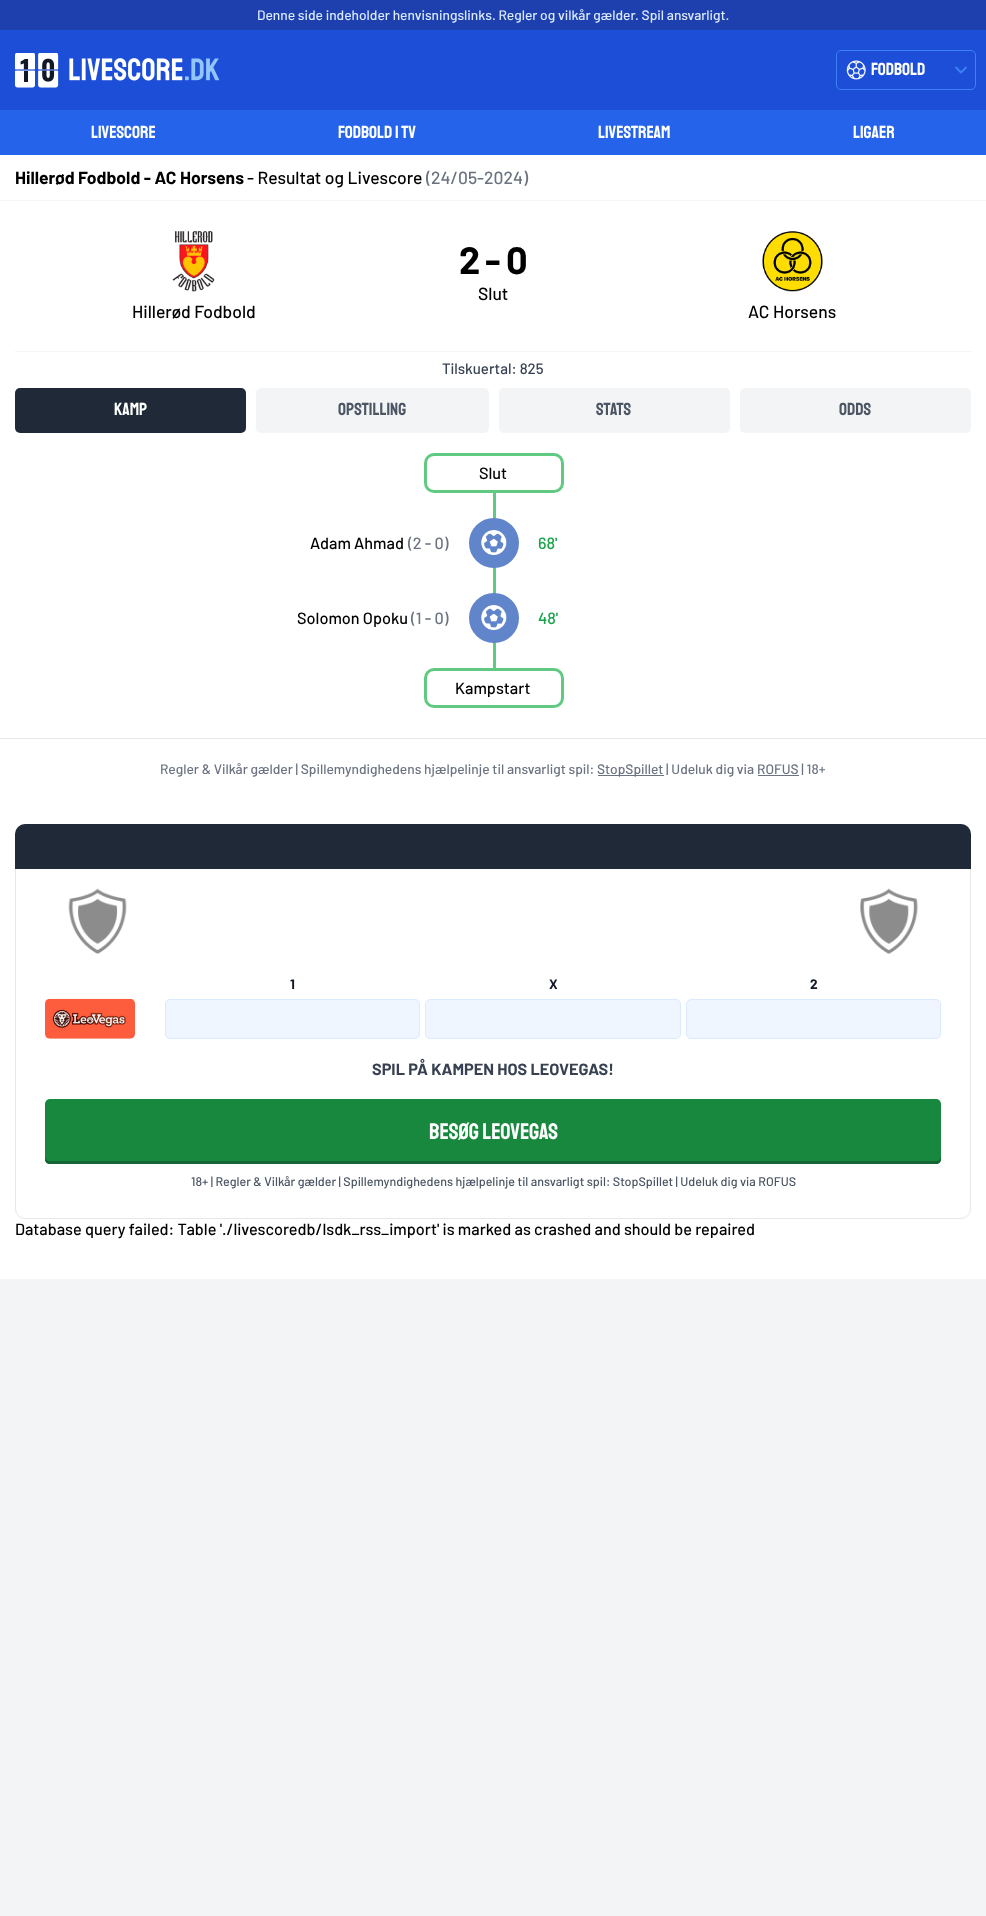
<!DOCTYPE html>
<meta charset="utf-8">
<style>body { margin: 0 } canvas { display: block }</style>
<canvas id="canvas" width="986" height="1916"></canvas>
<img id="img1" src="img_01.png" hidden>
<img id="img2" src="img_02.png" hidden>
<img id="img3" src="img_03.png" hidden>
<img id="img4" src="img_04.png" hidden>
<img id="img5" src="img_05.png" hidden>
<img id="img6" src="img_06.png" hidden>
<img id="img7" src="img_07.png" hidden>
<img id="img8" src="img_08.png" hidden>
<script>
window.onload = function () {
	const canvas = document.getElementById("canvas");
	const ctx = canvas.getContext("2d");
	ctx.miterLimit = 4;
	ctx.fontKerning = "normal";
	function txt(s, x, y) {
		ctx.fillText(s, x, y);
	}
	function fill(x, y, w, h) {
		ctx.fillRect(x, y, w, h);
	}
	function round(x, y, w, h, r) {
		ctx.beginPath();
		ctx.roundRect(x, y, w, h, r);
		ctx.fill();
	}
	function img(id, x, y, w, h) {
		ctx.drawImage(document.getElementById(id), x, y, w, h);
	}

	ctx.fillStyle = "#F3F4F6";
	fill(0, 0, 986, 1916);
	ctx.fillStyle = "#1D4ED8";
	fill(0, 30, 986, 80);
	ctx.fillStyle = "#1E40AF";
	fill(0, 0, 986, 30);
	img("img1", 15, 53, 205, 35);
	ctx.beginPath();
	ctx.roundRect(836.5, 50.5, 139, 39, 4.5);
	ctx.strokeStyle = "#3B82F6";
	ctx.stroke();
	img("img2", 846, 60, 20, 20);
	ctx.beginPath();
	ctx.moveTo(956, 67.5);
	ctx.lineTo(961, 72.5);
	ctx.lineTo(966, 67.5);
	ctx.lineWidth = 1.9;
	ctx.lineCap = "round";
	ctx.lineJoin = "round";
	ctx.stroke();
	ctx.fillStyle = "#2563EB";
	fill(0, 110, 986, 45);
	ctx.fillStyle = "#FFFFFF";
	fill(0, 155, 986, 1124);
	ctx.fillStyle = "#F3F4F6";
	fill(0, 200, 986, 1);
	img("img3", 172, 231, 43, 61);
	img("img4", 762, 231, 61, 61);
	fill(15, 351, 956, 1);
	ctx.fillStyle = "#1F2937";
	round(15, 388, 231, 45, 5);
	ctx.fillStyle = "#F3F4F6";
	round(256, 388, 233, 45, 5);
	round(499, 388, 231, 45, 5);
	round(740, 388, 231, 45, 5);
	ctx.beginPath();
	ctx.roundRect(425.5, 454.5, 137, 37, 8.5);
	ctx.strokeStyle = "#60CA83";
	ctx.lineWidth = 3;
	ctx.lineJoin = "miter";
	ctx.stroke();
	ctx.fillStyle = "#60CA83";
	fill(493, 493, 3, 175);
	ctx.fillStyle = "#6085CA";
	ctx.beginPath();
	ctx.arc(494, 543, 23.5, 0, Math.PI * 2);
	ctx.fill();
	ctx.strokeStyle = "#6085CA";
	ctx.stroke();
	img("img5", 481, 530, 26, 25);
	ctx.beginPath();
	ctx.arc(494, 618, 23.5, 0, Math.PI * 2);
	ctx.fill();
	ctx.stroke();
	img("img5", 481, 605, 26, 25);
	ctx.beginPath();
	ctx.roundRect(425.5, 669.5, 137, 37, 8.5);
	ctx.strokeStyle = "#60CA83";
	ctx.stroke();
	ctx.fillStyle = "#E5E7EB";
	fill(0, 738, 986, 1);
	ctx.fillStyle = "#6B7280";
	fill(598, 775, 66, 1);
	fill(758, 775, 41, 1);
	ctx.beginPath();
	ctx.roundRect(15.5, 824.5, 955, 394, 9.5);
	ctx.strokeStyle = "#E5E7EB";
	ctx.lineWidth = 1;
	ctx.stroke();
	ctx.fillStyle = "#1F2937";
	ctx.beginPath();
	ctx.roundRect(15, 824, 956, 45, [10, 10, 0, 0]);
	ctx.fill();
	img("img6", 68, 888, 59, 66);
	img("img7", 860, 888, 58, 66);
	ctx.fillStyle = "#F3F4F6";
	fill(45, 999, 90, 40);
	img("img8", 45, 998, 90, 41);
	ctx.fillStyle = "#EFF6FF";
	ctx.beginPath();
	ctx.roundRect(165.5, 999.5, 254, 39, 4.5);
	ctx.fill();
	ctx.strokeStyle = "#DBEAFE";
	ctx.stroke();
	ctx.beginPath();
	ctx.roundRect(425.5, 999.5, 255, 39, 4.5);
	ctx.fill();
	ctx.stroke();
	ctx.beginPath();
	ctx.roundRect(686.5, 999.5, 254, 39, 4.5);
	ctx.fill();
	ctx.stroke();
	ctx.fillStyle = "#18883F";
	round(45, 1099, 896, 65, 5);
	ctx.fillStyle = "#166534";
	ctx.beginPath();
	ctx.moveTo(45, 1156);
	ctx.lineTo(45, 1159);
	ctx.bezierCurveTo(45, 1162, 47, 1164, 50, 1164);
	ctx.lineTo(936, 1164);
	ctx.bezierCurveTo(939, 1164, 941, 1162, 941, 1159);
	ctx.lineTo(941, 1156);
	ctx.bezierCurveTo(941, 1159, 939, 1161, 936, 1161);
	ctx.lineTo(50, 1161);
	ctx.bezierCurveTo(47, 1161, 45, 1159, 45, 1156);
	ctx.closePath();
	ctx.fill();
	ctx.font = "500 13.75px Barlow";
	ctx.fillStyle = "#DBEAFE";
	txt("Denne side indeholder henvisningslinks. Regler og vilkår gælder. Spil ansvarligt.", 257, 20);
	ctx.font = "17.5px Staatliches";
	ctx.fillStyle = "#FFFFFF";
	txt("Fodbold", 871, 75);
	txt("LIVESCORE", 91, 138);
	txt("FODBOLD I TV", 338, 138);
	txt("LIVESTREAM", 598, 138);
	txt("LIGAER", 853, 138);
	ctx.font = "bold 17.5px Barlow";
	ctx.fillStyle = "#000000";
	txt("Hillerød Fodbold - AC Horsens", 15, 184);
	ctx.font = "500 17.5px Barlow";
	txt("- Resultat og Livescore", 247, 184);
	ctx.fillStyle = "#6B7280";
	txt("(24/05-2024)", 426, 184);
	ctx.font = "bold 38px Barlow";
	ctx.fillStyle = "#000000";
	txt("2", 459, 274);
	txt("-", 485, 274);
	txt("0", 506, 274);
	ctx.font = "500 17.5px Barlow";
	txt("Slut", 478, 300);
	txt("Hillerød Fodbold", 132, 318);
	txt("AC Horsens", 748, 318);
	ctx.font = "500 15px Barlow";
	ctx.fillStyle = "#374151";
	txt("Tilskuertal: 825", 442, 374);
	ctx.font = "17.5px Staatliches";
	ctx.fillStyle = "#FFFFFF";
	txt("Kamp", 114, 415);
	ctx.fillStyle = "#4B5563";
	txt("Opstilling", 338, 415);
	txt("Stats", 596, 415);
	txt("Odds", 839, 415);
	ctx.font = "500 16.25px Barlow";
	ctx.fillStyle = "#000000";
	txt("Slut", 479, 479);
	txt("Adam Ahmad", 310, 549);
	ctx.fillStyle = "#6B7280";
	txt("(2 - 0)", 408, 549);
	ctx.fillStyle = "#16A34A";
	txt("68'", 538, 549);
	ctx.fillStyle = "#000000";
	txt("Solomon Opoku", 297, 624);
	ctx.fillStyle = "#6B7280";
	txt("(1 - 0)", 411, 624);
	ctx.fillStyle = "#16A34A";
	txt("48'", 538, 624);
	ctx.fillStyle = "#000000";
	txt("Kampstart", 455, 694);
	ctx.font = "500 13.75px Barlow";
	ctx.fillStyle = "#6B7280";
	txt("Regler & Vilkår gælder | Spillemyndighedens hjælpelinje til ansvarligt spil:", 160, 774);
	txt("StopSpillet | Udeluk dig via ROFUS | 18+", 597, 774);
	ctx.font = "bold 13.75px Barlow";
	ctx.fillStyle = "#111827";
	txt("1", 290, 989);
	txt("X", 549, 989);
	txt("2", 810, 989);
	ctx.font = "bold 16.25px Barlow";
	ctx.fillStyle = "#374151";
	txt("SPIL PÅ KAMPEN HOS LEOVEGAS!", 372, 1075);
	ctx.font = "22.5px Staatliches";
	ctx.fillStyle = "#FFFFFF";
	txt("BESØG LEOVEGAS", 429, 1139);
	ctx.font = "500 12.5px Barlow";
	ctx.fillStyle = "#4B5563";
	txt("18+ | Regler & Vilkår gælder | Spillemyndighedens hjælpelinje til ansvarligt spil: StopSpillet | Udeluk dig via ROFUS", 191, 1186);
	ctx.font = "500 16.25px Barlow";
	ctx.fillStyle = "#000000";
	txt("Database query failed: Table './livescoredb/lsdk_rss_import' is marked as crashed and should be repaired", 15, 1235);
};
</script>
